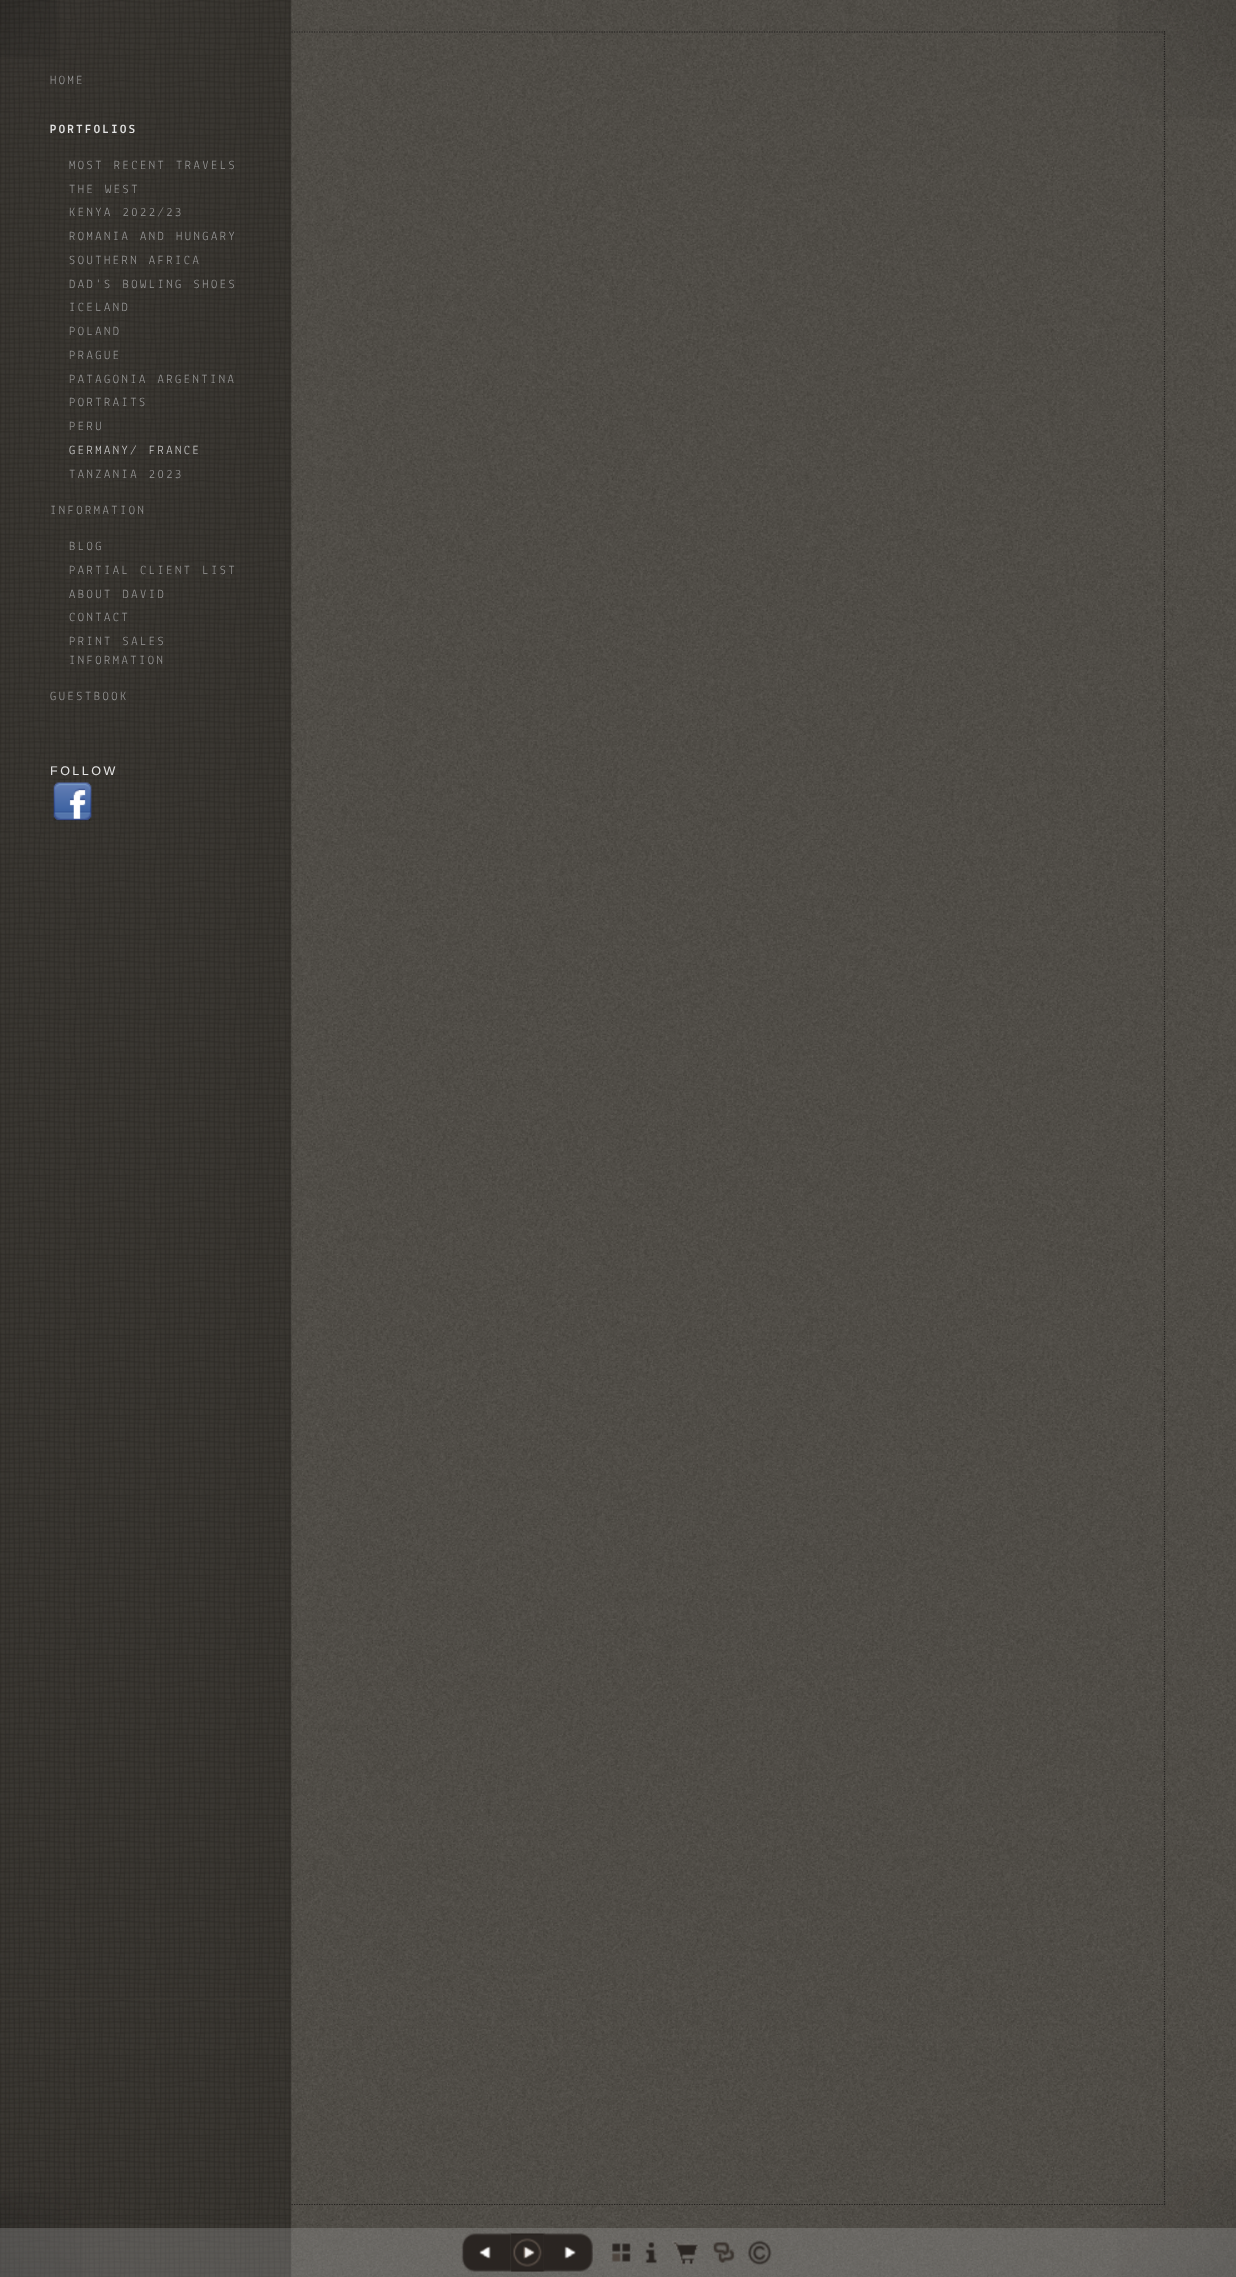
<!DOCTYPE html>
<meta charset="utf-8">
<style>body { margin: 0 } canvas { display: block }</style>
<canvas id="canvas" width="1236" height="2277"></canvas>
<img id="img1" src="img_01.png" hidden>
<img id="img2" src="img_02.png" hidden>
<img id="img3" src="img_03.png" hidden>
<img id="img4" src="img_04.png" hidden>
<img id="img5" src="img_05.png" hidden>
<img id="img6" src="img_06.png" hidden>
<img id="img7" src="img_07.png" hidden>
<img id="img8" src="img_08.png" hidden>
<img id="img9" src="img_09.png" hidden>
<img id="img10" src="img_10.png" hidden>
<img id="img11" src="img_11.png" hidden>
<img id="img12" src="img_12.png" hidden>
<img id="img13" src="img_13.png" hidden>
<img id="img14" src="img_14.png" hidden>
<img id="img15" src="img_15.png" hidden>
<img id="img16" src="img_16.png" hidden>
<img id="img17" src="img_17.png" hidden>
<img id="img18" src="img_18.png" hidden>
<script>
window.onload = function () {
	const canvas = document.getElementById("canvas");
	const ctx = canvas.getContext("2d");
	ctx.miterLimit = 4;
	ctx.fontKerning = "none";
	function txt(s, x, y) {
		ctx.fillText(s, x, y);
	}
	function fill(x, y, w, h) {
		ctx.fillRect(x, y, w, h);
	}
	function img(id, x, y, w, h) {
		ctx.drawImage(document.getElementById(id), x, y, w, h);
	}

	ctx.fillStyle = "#FFFFFF";
	fill(0, 0, 1236, 2277);
	img("img1", 0, 0, 1236, 2277);
	ctx.beginPath();
	ctx.moveTo(74, 32);
	ctx.lineTo(1165, 32);
	ctx.strokeStyle = "#242220";
	ctx.lineWidth = 1.2;
	ctx.setLineDash([1.25, 1.25]);
	ctx.stroke();
	ctx.beginPath();
	ctx.moveTo(1164.5, 31);
	ctx.lineTo(1164.5, 2205);
	ctx.stroke();
	ctx.beginPath();
	ctx.moveTo(74, 2204.5);
	ctx.lineTo(1165, 2204.5);
	ctx.stroke();
	ctx.beginPath();
	ctx.moveTo(74.5, 31);
	ctx.lineTo(74.5, 2205);
	ctx.stroke();
	img("img2", 0, 0, 126, 123);
	img("img3", 1117, 0, 119, 119);
	img("img4", 0, 2150, 129, 127);
	img("img5", 1117, 2159, 119, 118);
	img("img6", 0, 0, 292, 2277);
	img("img7", 0, 0, 57, 57);
	img("img8", 53, 782, 39, 39);
	img("img9", 0, 2193, 83, 84);
	ctx.fillStyle = "rgba(170, 170, 170, 0.3)";
	fill(0, 2228, 1236, 49);
	img("img10", 461, 2232, 51, 40);
	img("img11", 511, 2233, 33, 39);
	img("img12", 511, 2233, 34, 39);
	img("img13", 543, 2232, 50, 40);
	img("img14", 612, 2243, 19, 19);
	img("img15", 645, 2242, 12, 22);
	img("img16", 672, 2241, 26, 25);
	img("img17", 713, 2242, 22, 21);
	img("img18", 748, 2240, 24, 25);
	ctx.letterSpacing = "2.5px";
	ctx.font = "12.5px Lekton";
	ctx.fillStyle = "#999999";
	txt("HOME", 50, 84);
	ctx.font = "bold 12.5px Lekton";
	ctx.fillStyle = "#E5E5E5";
	txt("PORTFOLIOS", 50, 133);
	ctx.wordSpacing = "1px";
	ctx.font = "12.5px Lekton";
	ctx.fillStyle = "#999999";
	txt("MOST RECENT TRAVELS", 69, 169);
	txt("THE WEST", 69, 193);
	txt("KENYA 2022/23", 69, 216);
	txt("ROMANIA AND HUNGARY", 69, 240);
	txt("SOUTHERN AFRICA", 69, 264);
	txt("DAD'S BOWLING SHOES", 69, 288);
	ctx.wordSpacing = "0px";
	txt("ICELAND", 69, 311);
	txt("POLAND", 69, 335);
	txt("PRAGUE", 69, 359);
	ctx.wordSpacing = "1px";
	txt("PATAGONIA ARGENTINA", 69, 383);
	ctx.wordSpacing = "0px";
	txt("PORTRAITS", 69, 406);
	txt("PERU", 69, 430);
	ctx.wordSpacing = "1px";
	ctx.fillStyle = "#CCCCCC";
	txt("GERMANY/ FRANCE", 69, 454);
	ctx.fillStyle = "#999999";
	txt("TANZANIA 2023", 69, 478);
	ctx.wordSpacing = "0px";
	txt("INFORMATION", 50, 514);
	txt("BLOG", 69, 550);
	ctx.wordSpacing = "1px";
	txt("PARTIAL CLIENT LIST", 69, 574);
	txt("ABOUT DAVID", 69, 598);
	ctx.wordSpacing = "0px";
	txt("CONTACT", 69, 621);
	ctx.wordSpacing = "1px";
	txt("PRINT SALES", 69, 645);
	ctx.wordSpacing = "0px";
	txt("INFORMATION", 69, 664);
	txt("GUESTBOOK", 50, 700);
	ctx.font = "12.5px Liberation Sans";
	ctx.fillStyle = "#E5E5E5";
	txt("FOLLOW", 50, 775);
};
</script>
